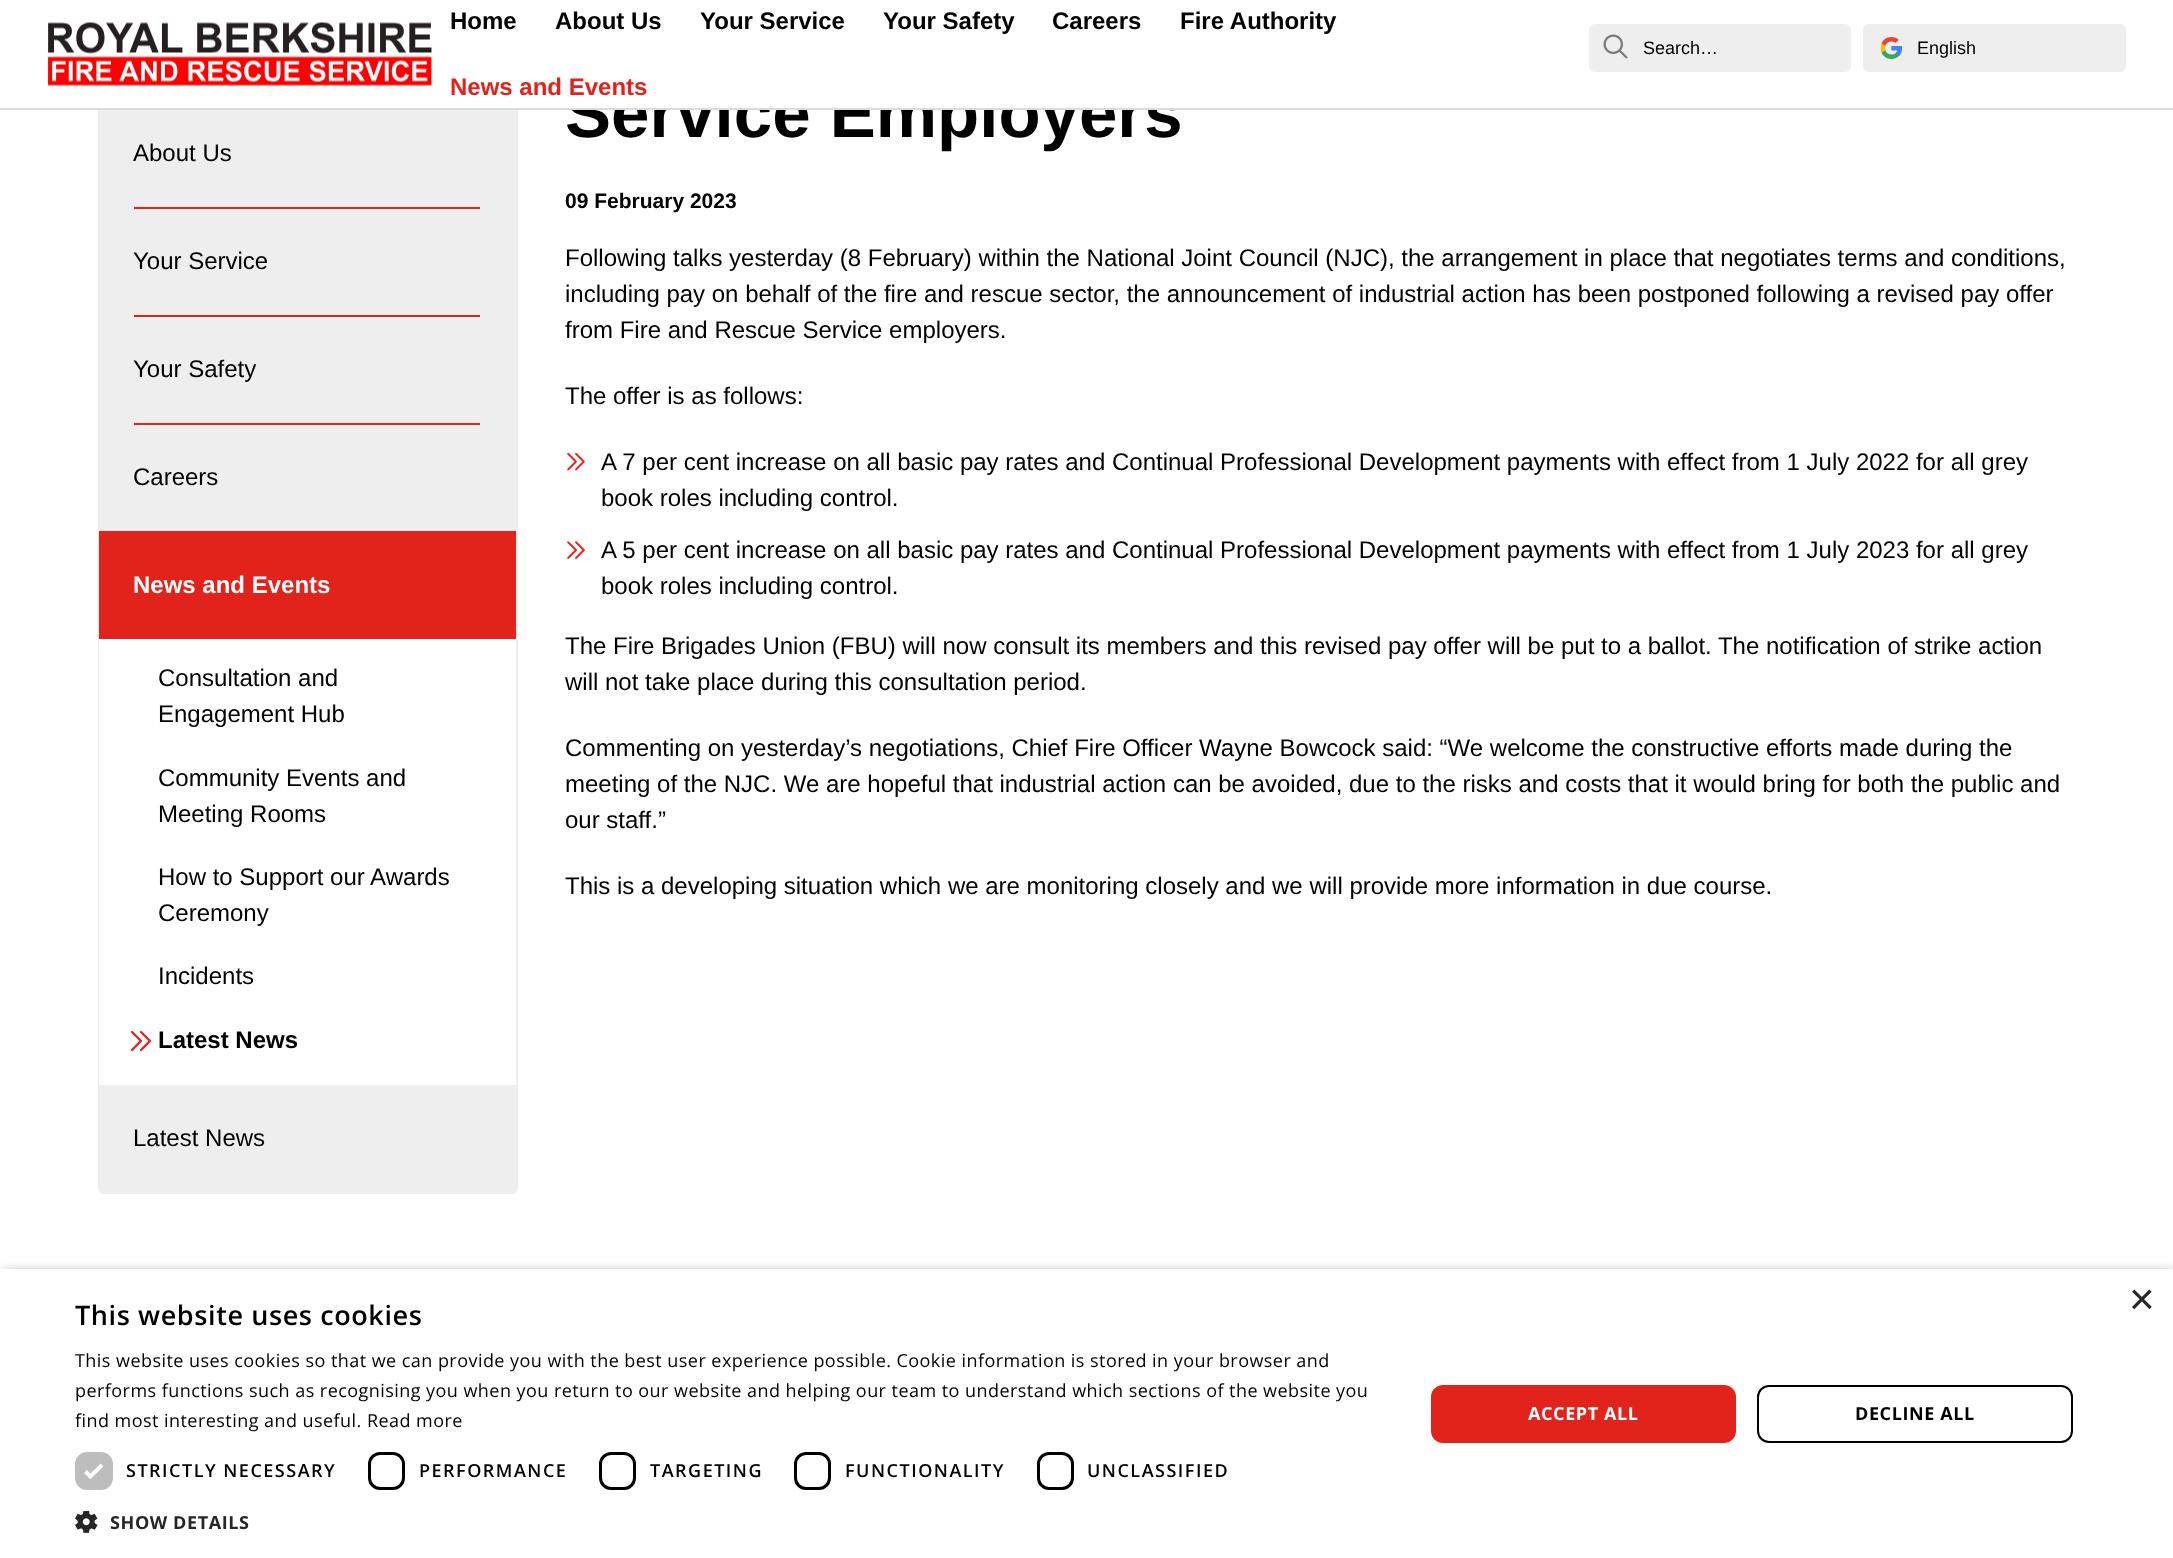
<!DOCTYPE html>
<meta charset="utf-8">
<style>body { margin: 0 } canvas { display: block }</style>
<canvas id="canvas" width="2173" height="1558"></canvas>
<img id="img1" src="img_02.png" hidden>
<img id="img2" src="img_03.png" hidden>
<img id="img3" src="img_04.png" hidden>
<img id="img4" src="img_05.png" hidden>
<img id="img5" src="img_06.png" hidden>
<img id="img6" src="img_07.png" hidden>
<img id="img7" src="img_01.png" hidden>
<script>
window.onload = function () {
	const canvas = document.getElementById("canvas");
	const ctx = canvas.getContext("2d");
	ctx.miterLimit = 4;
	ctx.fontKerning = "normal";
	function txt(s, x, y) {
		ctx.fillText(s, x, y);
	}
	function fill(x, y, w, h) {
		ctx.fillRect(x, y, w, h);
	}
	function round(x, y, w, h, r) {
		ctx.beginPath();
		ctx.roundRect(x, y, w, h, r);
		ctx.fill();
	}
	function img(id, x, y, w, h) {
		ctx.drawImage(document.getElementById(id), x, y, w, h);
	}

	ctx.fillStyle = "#FFFFFF";
	fill(0, 0, 2173, 1558);
	ctx.fillStyle = "#EEEEEE";
	round(1589, 24, 262, 48, 6);
	img("img1", 1603, 34, 25, 25);
	round(1863, 24, 263, 48, 6);
	img("img2", 1880, 37, 22, 22);
	ctx.beginPath();
	ctx.roundRect(99, -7, 418, 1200, 5);
	ctx.fill();
	ctx.strokeStyle = "#EEEEEE";
	ctx.lineWidth = 2;
	ctx.stroke();
	ctx.fillStyle = "#E2231B";
	fill(134, 207, 346, 2);
	fill(134, 315, 346, 2);
	fill(134, 423, 346, 2);
	fill(99, 531, 417, 108);
	ctx.fillStyle = "#FFFFFF";
	fill(99, 639, 417, 446);
	img("img3", 130, 1030, 22, 22);
	img("img4", 567, 452, 18, 19);
	img("img5", 567, 541, 18, 18);
	ctx.fillStyle = "rgba(0, 0, 0, 0.35)";
	ctx.filter = "blur(6px)";
	ctx.beginPath();
	ctx.rect(2, 1272, 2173, 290);
	ctx.fill();
	ctx.filter = "none";
	ctx.fillStyle = "#FFFFFF";
	fill(0, 1269, 2173, 289);
	ctx.fillStyle = "#BDBDBD";
	round(75, 1452, 38, 38, 12);
	ctx.beginPath();
	ctx.moveTo(85.5, 1471.5);
	ctx.lineTo(90.5, 1476.5);
	ctx.lineTo(102, 1465);
	ctx.strokeStyle = "#FFFFFF";
	ctx.lineWidth = 3.9;
	ctx.stroke();
	ctx.beginPath();
	ctx.roundRect(369.5, 1453.5, 34, 35, 10.5);
	ctx.strokeStyle = "#000000";
	ctx.lineWidth = 3;
	ctx.stroke();
	ctx.beginPath();
	ctx.roundRect(600.5, 1453.5, 34, 35, 10.5);
	ctx.stroke();
	ctx.beginPath();
	ctx.roundRect(795.5, 1453.5, 34, 35, 10.5);
	ctx.stroke();
	ctx.beginPath();
	ctx.roundRect(1038.5, 1453.5, 34, 35, 10.5);
	ctx.stroke();
	img("img6", 75, 1511, 23, 22);
	ctx.fillStyle = "#E2231B";
	round(1431, 1385, 305, 58, 12);
	ctx.beginPath();
	ctx.roundRect(1758, 1386, 314, 56, 11);
	ctx.lineWidth = 2;
	ctx.stroke();
	ctx.font = "bold 24px Liberation Sans";
	ctx.fillStyle = "#000000";
	txt("Fire Authority", 1180, 29);
	ctx.font = "18px Liberation Sans";
	txt("Search…", 1643, 54);
	txt("English", 1917, 54);
	ctx.font = "24px Liberation Sans";
	txt("About Us", 133, 161);
	txt("Your Service", 133, 269);
	txt("Your Safety", 133, 377);
	txt("Careers", 133, 485);
	ctx.font = "bold 24px Liberation Sans";
	ctx.fillStyle = "#FFFFFF";
	txt("News and Events", 133, 593);
	ctx.font = "24px Liberation Sans";
	ctx.fillStyle = "#000000";
	txt("Consultation and", 158, 686);
	txt("Engagement Hub", 158, 722);
	txt("Community Events and", 158, 786);
	txt("Meeting Rooms", 158, 822);
	txt("How to Support our Awards", 158, 885);
	txt("Ceremony", 158, 921);
	txt("Incidents", 158, 984);
	ctx.font = "bold 24px Liberation Sans";
	txt("Latest News", 158, 1048);
	ctx.font = "24px Liberation Sans";
	txt("Latest News", 133, 1146);
	ctx.font = "bold 69px Liberation Sans";
	txt("Service Employers", 565, 137);
	ctx.fillStyle = "#FFFFFF";
	fill(98, 0, 1081, 108);
	ctx.font = "bold 24px Liberation Sans";
	ctx.fillStyle = "#E2231B";
	txt("News and Events", 450, 95);
	ctx.fillStyle = "#000000";
	txt("Careers", 1052, 29);
	txt("Your Safety", 883, 29);
	txt("Your Service", 700, 29);
	txt("About Us", 555, 29);
	txt("Home", 450, 29);
	img("img7", 48, 22, 384, 64);
	ctx.fillStyle = "#DBDBDB";
	fill(0, 108, 2173, 2);
	ctx.font = "bold 21px Liberation Sans";
	ctx.fillStyle = "#000000";
	txt("09 February 2023", 565, 208);
	ctx.font = "24px Liberation Sans";
	txt("Following talks yesterday (8 February) within the National Joint Council (NJC), the arrangement in place that negotiates terms and conditions,", 565, 266);
	txt("including pay on behalf of the fire and rescue sector, the announcement of industrial action has been postponed following a revised pay offer", 565, 302);
	txt("from Fire and Rescue Service employers.", 565, 338);
	txt("The offer is as follows:", 565, 404);
	txt("A 7 per cent increase on all basic pay rates and Continual Professional Development payments with effect from 1 July 2022 for all grey", 601, 470);
	txt("book roles including control.", 601, 506);
	txt("A 5 per cent increase on all basic pay rates and Continual Professional Development payments with effect from 1 July 2023 for all grey", 601, 558);
	txt("book roles including control.", 601, 594);
	txt("The Fire Brigades Union (FBU) will now consult its members and this revised pay offer will be put to a ballot. The notification of strike action", 565, 654);
	txt("will not take place during this consultation period.", 565, 690);
	txt("Commenting on yesterday’s negotiations, Chief Fire Officer Wayne Bowcock said: “We welcome the constructive efforts made during the", 565, 756);
	txt("meeting of the NJC. We are hopeful that industrial action can be avoided, due to the risks and costs that it would bring for both the public and", 565, 792);
	txt("our staff.”", 565, 828);
	txt("This is a developing situation which we are monitoring closely and we will provide more information in due course.", 565, 894);
	ctx.font = "44px Liberation Sans";
	ctx.fillStyle = "#262626";
	txt("×", 2129, 1314);
	ctx.letterSpacing = "0.6px";
	ctx.font = "600 27px Open Sans";
	ctx.fillStyle = "#000000";
	txt("This website uses cookies", 75, 1325);
	ctx.letterSpacing = "0.45px";
	ctx.font = "18px Open Sans";
	txt("This website uses cookies so that we can provide you with the best user experience possible. Cookie information is stored in your browser and", 75, 1367);
	txt("performs functions such as recognising you when you return to our website and helping our team to understand which sections of the website you", 75, 1397);
	txt("find most interesting and useful. Read more", 75, 1427);
	ctx.letterSpacing = "1.5px";
	ctx.font = "600 18px Open Sans";
	txt("STRICTLY NECESSARY", 126, 1477);
	txt("PERFORMANCE", 419, 1477);
	txt("TARGETING", 650, 1477);
	txt("FUNCTIONALITY", 845, 1477);
	txt("UNCLASSIFIED", 1087, 1477);
	ctx.letterSpacing = "0.6px";
	ctx.font = "bold 18px Open Sans";
	ctx.fillStyle = "#262626";
	txt("SHOW DETAILS", 110, 1529);
	ctx.fillStyle = "#FFFFFF";
	txt("ACCEPT ALL", 1528, 1420);
	ctx.fillStyle = "#000000";
	txt("DECLINE ALL", 1855, 1420);
};
</script>
